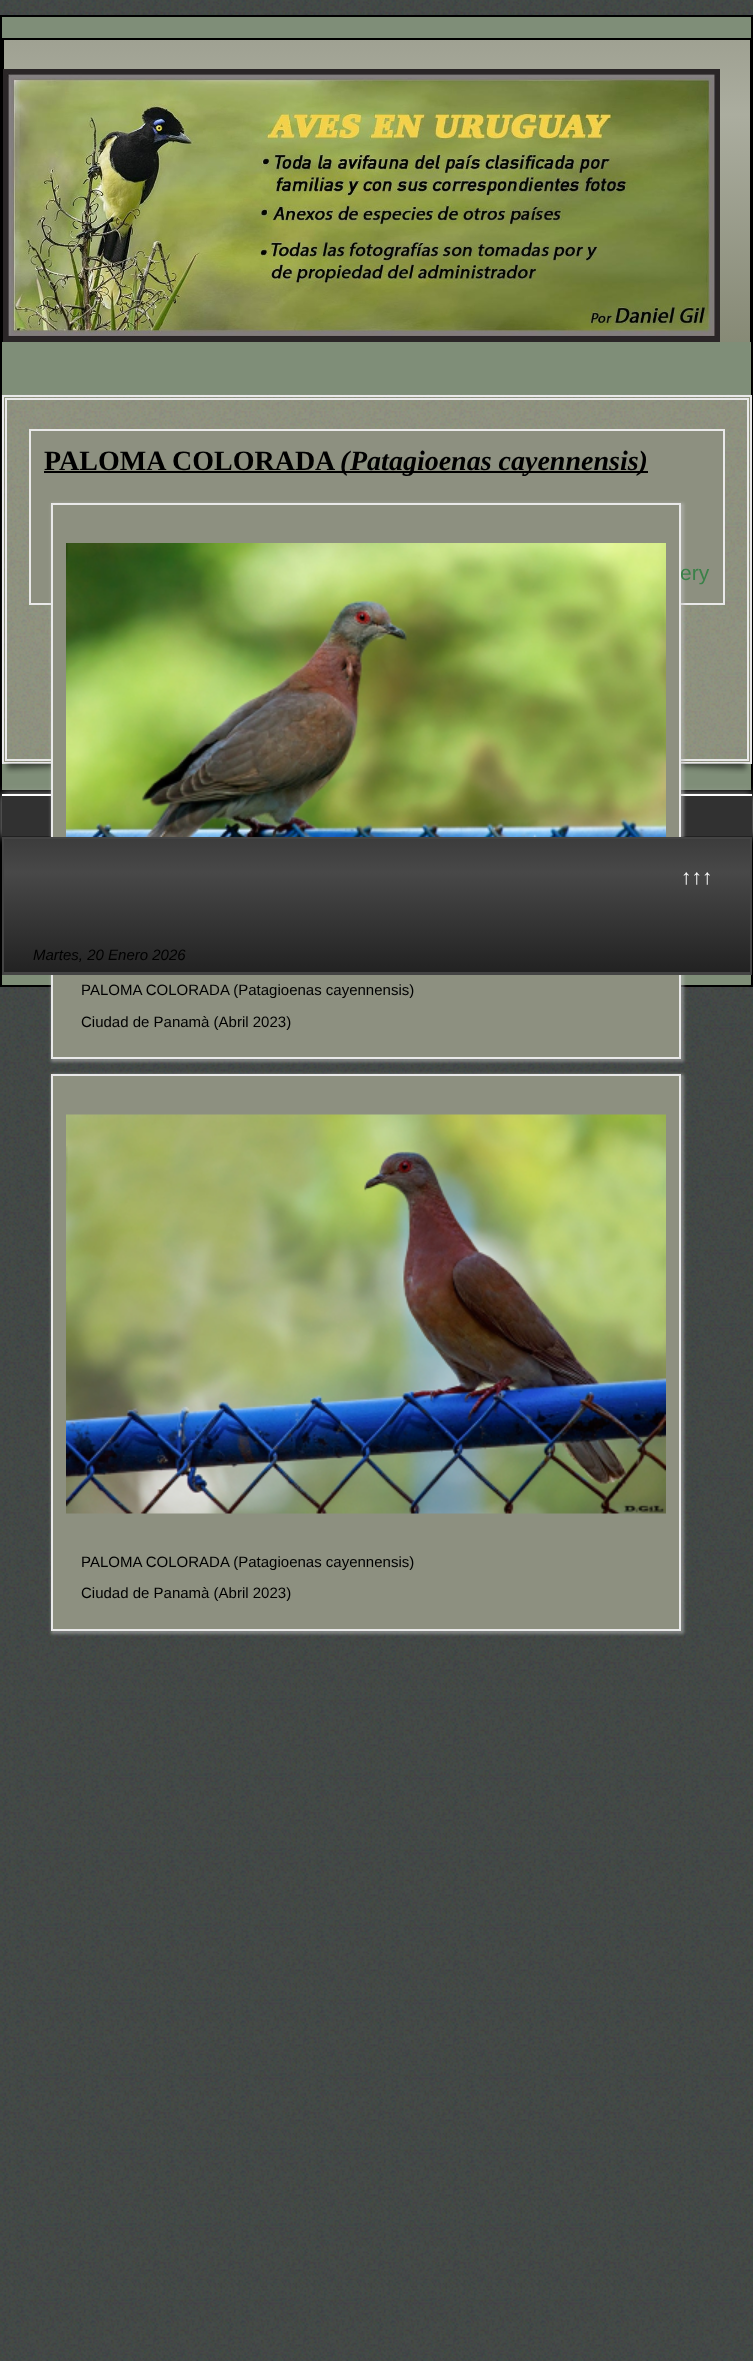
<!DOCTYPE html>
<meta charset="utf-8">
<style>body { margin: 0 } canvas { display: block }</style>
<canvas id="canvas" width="753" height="2361"></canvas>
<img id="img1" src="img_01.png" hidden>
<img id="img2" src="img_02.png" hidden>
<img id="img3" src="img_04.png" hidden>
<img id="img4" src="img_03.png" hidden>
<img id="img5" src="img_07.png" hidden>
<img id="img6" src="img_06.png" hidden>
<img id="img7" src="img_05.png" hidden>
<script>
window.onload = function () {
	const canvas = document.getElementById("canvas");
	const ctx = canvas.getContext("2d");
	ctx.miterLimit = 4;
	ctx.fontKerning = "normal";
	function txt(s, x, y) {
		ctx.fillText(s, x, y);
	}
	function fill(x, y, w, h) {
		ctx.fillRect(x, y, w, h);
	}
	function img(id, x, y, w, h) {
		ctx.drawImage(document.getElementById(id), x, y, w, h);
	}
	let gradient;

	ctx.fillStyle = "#343A37";
	fill(0, 0, 753, 2361);
	img("img1", 0, 0, 753, 2361);
	ctx.fillStyle = "#7F8E78";
	ctx.beginPath();
	ctx.rect(1, 16, 751, 775);
	ctx.fill();
	ctx.strokeStyle = "#000000";
	ctx.lineWidth = 2;
	ctx.stroke();
	gradient = ctx.createLinearGradient(377, 39, 377, 342);
	gradient.addColorStop(0, "#9FA192");
	gradient.addColorStop(0.25, "#ABAD9F");
	gradient.addColorStop(1, "#878A76");
	ctx.fillStyle = gradient;
	fill(4, 40, 746, 302);
	ctx.fillStyle = "#000000";
	fill(2, 38, 750, 2);
	fill(750, 38, 1, 304);
	fill(2, 38, 2, 304);
	img("img2", 3, 69, 717, 273);
	ctx.fillStyle = "#878A76";
	fill(4, 397, 746, 365);
	img("img3", 1, 394, 750, 369);
	ctx.strokeStyle = "#E9E9E9";
	ctx.strokeRect(3, 396, 748, 367);
	img("img4", 2, 763, 49, 11);
	ctx.strokeRect(6, 399, 742, 361);
	ctx.fillStyle = "#8D9080";
	ctx.beginPath();
	ctx.rect(30, 430, 694, 174);
	ctx.fill();
	ctx.stroke();
	ctx.fillStyle = "#000000";
	fill(44, 471, 306, 2);
	fill(350, 471, 298, 2);
	img("img5", 681, 763, 70, 11);
	ctx.fillStyle = "#7F8E78";
	fill(2, 975, 749, 10);
	ctx.strokeStyle = "#000000";
	ctx.strokeRect(1, 793, 751, 193);
	ctx.fillStyle = "#AAAAAA";
	ctx.filter = "blur(4px)";
	ctx.beginPath();
	ctx.rect(2, 794, 750, 43);
	ctx.fill();
	ctx.filter = "none";
	ctx.fillStyle = "#313131";
	fill(2, 796, 750, 40);
	ctx.fillStyle = "#FFFFFF";
	fill(2, 794, 750, 2);
	ctx.fillStyle = "#222222";
	fill(2, 836, 750, 1);
	ctx.fillStyle = "rgba(190, 190, 190, 0.5)";
	ctx.filter = "blur(1.5px)";
	ctx.beginPath();
	ctx.rect(51, 503, 633, 559);
	ctx.fill();
	ctx.filter = "none";
	ctx.filter = "blur(1.5px)";
	ctx.beginPath();
	ctx.rect(51, 1074, 633, 560);
	ctx.fill();
	ctx.filter = "none";
	ctx.fillStyle = "#8D9080";
	ctx.beginPath();
	ctx.rect(52, 1075, 628, 555);
	ctx.fill();
	ctx.strokeStyle = "#E9E9E9";
	ctx.stroke();
	img("img6", 66, 1114, 600, 400);
	ctx.font = "bold 28px Liberation Serif";
	ctx.fillStyle = "#000000";
	txt("PALOMA", 44, 470);
	txt("COLORADA", 172, 470);
	ctx.font = "italic bold 28px Liberation Serif";
	txt("(", 340, 470);
	txt("Patagioenas cayennensis)", 350, 470);
	ctx.font = "21px Liberation Sans";
	ctx.fillStyle = "#3A8148";
	txt("ery", 680, 580);
	ctx.fillStyle = "#8D9080";
	ctx.beginPath();
	ctx.rect(52, 504, 628, 554);
	ctx.fill();
	ctx.stroke();
	img("img7", 66, 543, 600, 294);
	ctx.font = "15px Liberation Sans";
	ctx.fillStyle = "#000000";
	txt("PALOMA COLORADA (Patagioenas cayennensis)", 81, 995);
	txt("Ciudad de Panamà (Abril 2023)", 81, 1027);
	txt("PALOMA COLORADA (Patagioenas cayennensis)", 81, 1567);
	txt("Ciudad de Panamà (Abril 2023)", 81, 1598);
	gradient = ctx.createLinearGradient(377, 839, 377, 972);
	gradient.addColorStop(0, "#3C3C3C");
	gradient.addColorStop(0.25, "#484848");
	gradient.addColorStop(1, "#222222");
	ctx.fillStyle = gradient;
	fill(4, 839, 746, 133);
	ctx.fillStyle = "#444444";
	fill(2, 837, 750, 2);
	fill(750, 837, 2, 138);
	fill(2, 972, 750, 3);
	fill(2, 837, 2, 138);
	ctx.font = "21px Liberation Sans";
	ctx.fillStyle = "#FFFFFF";
	txt("↑↑↑", 681, 884);
	ctx.font = "italic 15px Liberation Sans";
	ctx.fillStyle = "#000000";
	txt("Martes, 20 Enero 2026", 33, 960);
};
</script>
